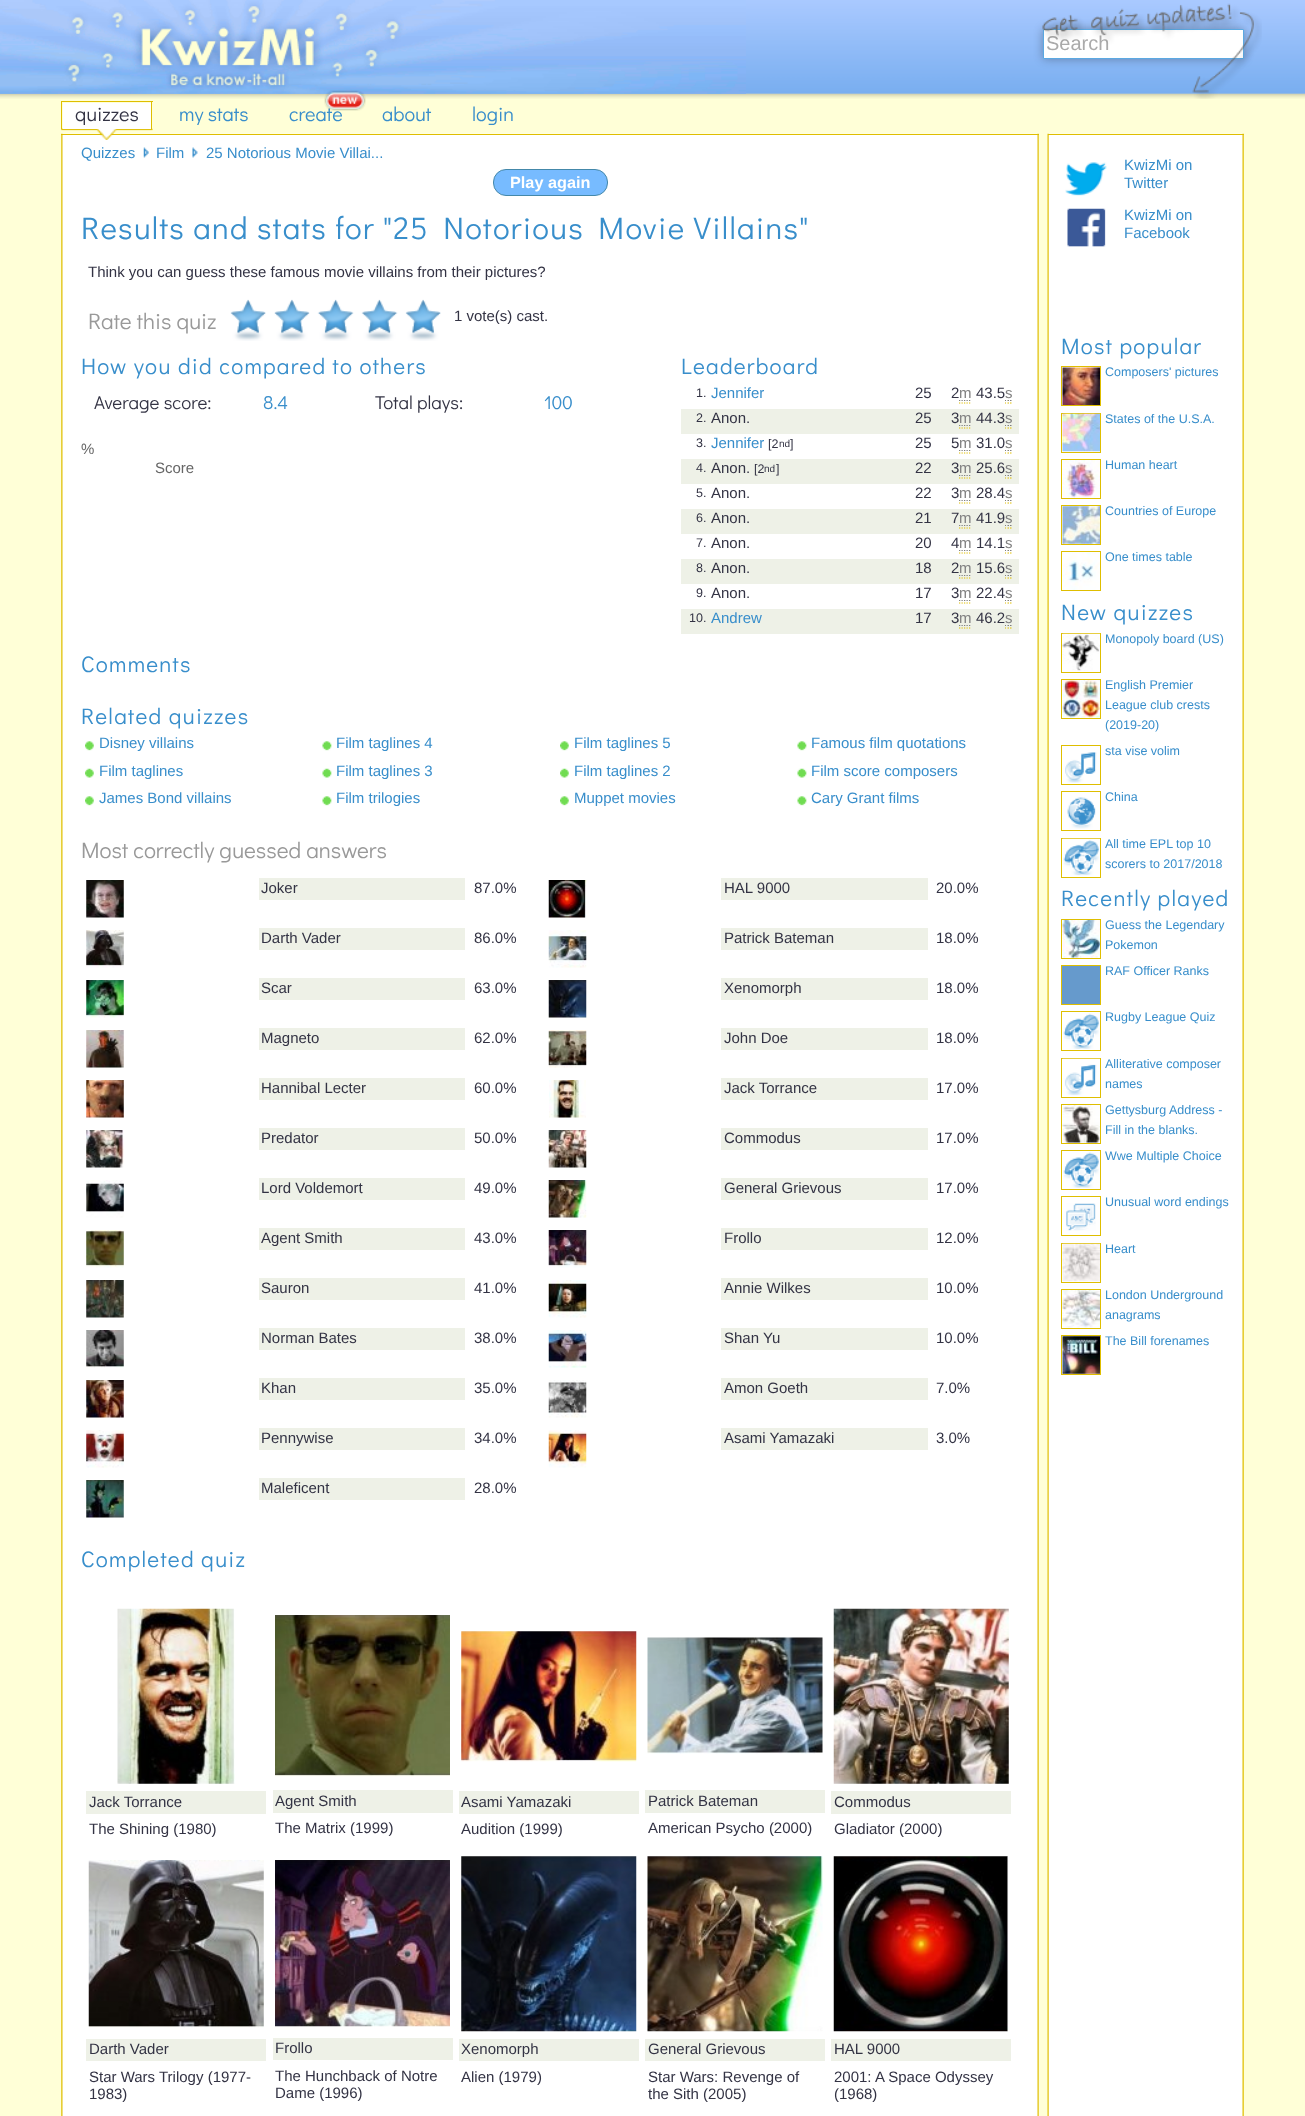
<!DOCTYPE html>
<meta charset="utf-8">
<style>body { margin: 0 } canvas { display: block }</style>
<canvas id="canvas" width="1305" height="2116"></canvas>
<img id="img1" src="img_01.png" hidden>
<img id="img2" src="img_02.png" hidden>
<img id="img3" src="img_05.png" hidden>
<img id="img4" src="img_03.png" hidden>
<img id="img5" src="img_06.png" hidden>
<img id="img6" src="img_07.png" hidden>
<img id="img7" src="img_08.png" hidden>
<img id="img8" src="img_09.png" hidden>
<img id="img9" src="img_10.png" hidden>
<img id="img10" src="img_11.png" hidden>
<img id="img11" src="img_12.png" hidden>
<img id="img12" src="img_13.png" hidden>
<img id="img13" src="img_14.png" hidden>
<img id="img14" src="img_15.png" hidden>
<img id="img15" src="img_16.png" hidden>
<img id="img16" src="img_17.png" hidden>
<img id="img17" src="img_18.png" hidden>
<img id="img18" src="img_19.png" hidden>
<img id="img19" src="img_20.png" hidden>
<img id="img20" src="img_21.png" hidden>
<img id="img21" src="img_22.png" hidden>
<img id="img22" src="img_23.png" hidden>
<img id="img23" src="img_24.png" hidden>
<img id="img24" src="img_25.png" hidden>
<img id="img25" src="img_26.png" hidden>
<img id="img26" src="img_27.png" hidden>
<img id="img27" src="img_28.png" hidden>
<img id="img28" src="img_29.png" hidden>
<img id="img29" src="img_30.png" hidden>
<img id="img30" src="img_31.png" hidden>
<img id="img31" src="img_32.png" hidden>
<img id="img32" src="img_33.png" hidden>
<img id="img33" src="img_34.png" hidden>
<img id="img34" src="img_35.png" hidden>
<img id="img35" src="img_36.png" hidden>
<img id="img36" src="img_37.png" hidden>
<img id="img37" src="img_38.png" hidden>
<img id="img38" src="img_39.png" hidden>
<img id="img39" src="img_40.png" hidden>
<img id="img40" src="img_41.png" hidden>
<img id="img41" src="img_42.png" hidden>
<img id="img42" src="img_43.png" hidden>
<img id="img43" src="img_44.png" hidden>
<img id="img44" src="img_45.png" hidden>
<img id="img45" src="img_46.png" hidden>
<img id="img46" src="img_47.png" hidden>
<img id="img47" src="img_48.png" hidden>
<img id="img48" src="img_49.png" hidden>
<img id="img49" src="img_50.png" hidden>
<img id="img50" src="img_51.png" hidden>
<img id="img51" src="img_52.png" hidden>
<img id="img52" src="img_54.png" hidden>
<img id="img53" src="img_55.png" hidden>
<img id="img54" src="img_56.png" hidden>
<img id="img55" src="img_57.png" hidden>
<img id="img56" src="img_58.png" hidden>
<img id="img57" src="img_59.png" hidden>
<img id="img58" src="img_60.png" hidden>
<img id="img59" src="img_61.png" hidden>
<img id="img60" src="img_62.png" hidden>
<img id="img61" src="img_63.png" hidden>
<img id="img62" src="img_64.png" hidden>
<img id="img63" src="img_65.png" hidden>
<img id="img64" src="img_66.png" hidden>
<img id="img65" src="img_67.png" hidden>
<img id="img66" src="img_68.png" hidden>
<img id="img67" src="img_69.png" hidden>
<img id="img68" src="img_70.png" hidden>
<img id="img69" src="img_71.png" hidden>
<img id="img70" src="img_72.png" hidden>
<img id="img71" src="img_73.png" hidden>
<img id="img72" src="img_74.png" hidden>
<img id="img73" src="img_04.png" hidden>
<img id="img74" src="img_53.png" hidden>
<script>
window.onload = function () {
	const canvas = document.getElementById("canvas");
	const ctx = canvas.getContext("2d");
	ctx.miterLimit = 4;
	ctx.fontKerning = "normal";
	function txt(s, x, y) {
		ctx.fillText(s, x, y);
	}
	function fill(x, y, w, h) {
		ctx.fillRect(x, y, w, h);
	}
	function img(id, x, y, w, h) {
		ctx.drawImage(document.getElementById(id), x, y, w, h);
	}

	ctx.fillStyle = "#FFFFD7";
	fill(0, 0, 1305, 2116);
	img("img1", 0, 0, 1305, 99);
	img("img2", 0, 0, 746, 94);
	ctx.fillStyle = "rgba(0, 0, 0, 0.3)";
	ctx.filter = "blur(5px)";
	ctx.beginPath();
	ctx.rect(1043, 29, 201, 30);
	ctx.fill();
	ctx.filter = "none";
	ctx.fillStyle = "#FFFFFF";
	ctx.beginPath();
	ctx.rect(1043.5, 29.5, 200, 29);
	ctx.fill();
	ctx.strokeStyle = "#5BA9E2";
	ctx.stroke();
	img("img3", 61, 133, 1183, 1983);
	ctx.fillStyle = "#DFBE00";
	fill(61, 134, 978, 1);
	img("img4", 61, 128, 92, 12);
	ctx.fillStyle = "#FFFFFF";
	fill(63, 103, 88, 26);
	ctx.fillStyle = "#DFBE00";
	fill(61, 101, 92, 1);
	fill(151, 101, 1, 28);
	fill(61, 101, 1, 28);
	img("img5", 143, 147, 6, 11);
	img("img6", 192, 147, 6, 11);
	ctx.fillStyle = "#77BBFF";
	ctx.beginPath();
	ctx.roundRect(493.5, 169.5, 114, 26, 12.5);
	ctx.fill();
	ctx.strokeStyle = "#4488AA";
	ctx.stroke();
	img("img7", 230, 299, 36, 42);
	img("img8", 274, 299, 36, 42);
	img("img9", 317, 299, 37, 42);
	img("img10", 361, 299, 37, 42);
	img("img7", 405, 299, 36, 42);
	ctx.beginPath();
	ctx.moveTo(959, 403);
	ctx.lineTo(971, 403);
	ctx.strokeStyle = "#DFBE00";
	ctx.lineWidth = 1.2;
	ctx.setLineDash([1.25, 1.25]);
	ctx.stroke();
	ctx.beginPath();
	ctx.moveTo(959, 400.5);
	ctx.lineTo(971.5, 400.5);
	ctx.strokeStyle = "#808080";
	ctx.stroke();
	ctx.beginPath();
	ctx.moveTo(1005, 403);
	ctx.lineTo(1006, 403);
	ctx.moveTo(1007.5, 403);
	ctx.lineTo(1009, 403);
	ctx.moveTo(1010, 403);
	ctx.lineTo(1011.5, 403);
	ctx.strokeStyle = "#DFBE00";
	ctx.setLineDash([]);
	ctx.stroke();
	ctx.beginPath();
	ctx.moveTo(1005, 400.5);
	ctx.lineTo(1006, 400.5);
	ctx.moveTo(1007.5, 400.5);
	ctx.lineTo(1009, 400.5);
	ctx.moveTo(1010, 400.5);
	ctx.lineTo(1011.5, 400.5);
	ctx.strokeStyle = "#808080";
	ctx.stroke();
	ctx.fillStyle = "#EEF1E7";
	fill(681, 409, 338, 25);
	ctx.beginPath();
	ctx.moveTo(959, 428);
	ctx.lineTo(971, 428);
	ctx.strokeStyle = "#DFBE00";
	ctx.setLineDash([1.25, 1.25]);
	ctx.stroke();
	ctx.beginPath();
	ctx.moveTo(959, 425.5);
	ctx.lineTo(971.5, 425.5);
	ctx.strokeStyle = "#808080";
	ctx.stroke();
	ctx.beginPath();
	ctx.moveTo(1005, 428);
	ctx.lineTo(1006, 428);
	ctx.moveTo(1007.5, 428);
	ctx.lineTo(1009, 428);
	ctx.moveTo(1010, 428);
	ctx.lineTo(1011.5, 428);
	ctx.strokeStyle = "#DFBE00";
	ctx.setLineDash([]);
	ctx.stroke();
	ctx.beginPath();
	ctx.moveTo(1005, 425.5);
	ctx.lineTo(1006, 425.5);
	ctx.moveTo(1007.5, 425.5);
	ctx.lineTo(1009, 425.5);
	ctx.moveTo(1010, 425.5);
	ctx.lineTo(1011.5, 425.5);
	ctx.strokeStyle = "#808080";
	ctx.stroke();
	ctx.beginPath();
	ctx.moveTo(959, 453);
	ctx.lineTo(971, 453);
	ctx.strokeStyle = "#DFBE00";
	ctx.setLineDash([1.25, 1.25]);
	ctx.stroke();
	ctx.beginPath();
	ctx.moveTo(959, 450.5);
	ctx.lineTo(971.5, 450.5);
	ctx.strokeStyle = "#808080";
	ctx.stroke();
	ctx.beginPath();
	ctx.moveTo(1005, 453);
	ctx.lineTo(1006, 453);
	ctx.moveTo(1007.5, 453);
	ctx.lineTo(1009, 453);
	ctx.moveTo(1010, 453);
	ctx.lineTo(1011.5, 453);
	ctx.strokeStyle = "#DFBE00";
	ctx.setLineDash([]);
	ctx.stroke();
	ctx.beginPath();
	ctx.moveTo(1005, 450.5);
	ctx.lineTo(1006, 450.5);
	ctx.moveTo(1007.5, 450.5);
	ctx.lineTo(1009, 450.5);
	ctx.moveTo(1010, 450.5);
	ctx.lineTo(1011.5, 450.5);
	ctx.strokeStyle = "#808080";
	ctx.stroke();
	fill(681, 459, 338, 25);
	ctx.beginPath();
	ctx.moveTo(959, 478);
	ctx.lineTo(971, 478);
	ctx.strokeStyle = "#DFBE00";
	ctx.setLineDash([1.25, 1.25]);
	ctx.stroke();
	ctx.beginPath();
	ctx.moveTo(959, 475.5);
	ctx.lineTo(971.5, 475.5);
	ctx.strokeStyle = "#808080";
	ctx.stroke();
	ctx.beginPath();
	ctx.moveTo(1005, 478);
	ctx.lineTo(1006, 478);
	ctx.moveTo(1007.5, 478);
	ctx.lineTo(1009, 478);
	ctx.moveTo(1010, 478);
	ctx.lineTo(1011.5, 478);
	ctx.strokeStyle = "#DFBE00";
	ctx.setLineDash([]);
	ctx.stroke();
	ctx.beginPath();
	ctx.moveTo(1005, 475.5);
	ctx.lineTo(1006, 475.5);
	ctx.moveTo(1007.5, 475.5);
	ctx.lineTo(1009, 475.5);
	ctx.moveTo(1010, 475.5);
	ctx.lineTo(1011.5, 475.5);
	ctx.strokeStyle = "#808080";
	ctx.stroke();
	ctx.beginPath();
	ctx.moveTo(959, 503);
	ctx.lineTo(971, 503);
	ctx.strokeStyle = "#DFBE00";
	ctx.setLineDash([1.25, 1.25]);
	ctx.stroke();
	ctx.beginPath();
	ctx.moveTo(959, 500.5);
	ctx.lineTo(971.5, 500.5);
	ctx.strokeStyle = "#808080";
	ctx.stroke();
	ctx.beginPath();
	ctx.moveTo(1005, 503);
	ctx.lineTo(1006, 503);
	ctx.moveTo(1007.5, 503);
	ctx.lineTo(1009, 503);
	ctx.moveTo(1010, 503);
	ctx.lineTo(1011.5, 503);
	ctx.strokeStyle = "#DFBE00";
	ctx.setLineDash([]);
	ctx.stroke();
	ctx.beginPath();
	ctx.moveTo(1005, 500.5);
	ctx.lineTo(1006, 500.5);
	ctx.moveTo(1007.5, 500.5);
	ctx.lineTo(1009, 500.5);
	ctx.moveTo(1010, 500.5);
	ctx.lineTo(1011.5, 500.5);
	ctx.strokeStyle = "#808080";
	ctx.stroke();
	fill(681, 509, 338, 25);
	ctx.beginPath();
	ctx.moveTo(959, 528);
	ctx.lineTo(971, 528);
	ctx.strokeStyle = "#DFBE00";
	ctx.setLineDash([1.25, 1.25]);
	ctx.stroke();
	ctx.beginPath();
	ctx.moveTo(959, 525.5);
	ctx.lineTo(971.5, 525.5);
	ctx.strokeStyle = "#808080";
	ctx.stroke();
	ctx.beginPath();
	ctx.moveTo(1005, 528);
	ctx.lineTo(1006, 528);
	ctx.moveTo(1007.5, 528);
	ctx.lineTo(1009, 528);
	ctx.moveTo(1010, 528);
	ctx.lineTo(1011.5, 528);
	ctx.strokeStyle = "#DFBE00";
	ctx.setLineDash([]);
	ctx.stroke();
	ctx.beginPath();
	ctx.moveTo(1005, 525.5);
	ctx.lineTo(1006, 525.5);
	ctx.moveTo(1007.5, 525.5);
	ctx.lineTo(1009, 525.5);
	ctx.moveTo(1010, 525.5);
	ctx.lineTo(1011.5, 525.5);
	ctx.strokeStyle = "#808080";
	ctx.stroke();
	ctx.beginPath();
	ctx.moveTo(959, 553);
	ctx.lineTo(971, 553);
	ctx.strokeStyle = "#DFBE00";
	ctx.setLineDash([1.25, 1.25]);
	ctx.stroke();
	ctx.beginPath();
	ctx.moveTo(959, 550.5);
	ctx.lineTo(971.5, 550.5);
	ctx.strokeStyle = "#808080";
	ctx.stroke();
	ctx.beginPath();
	ctx.moveTo(1005, 553);
	ctx.lineTo(1006, 553);
	ctx.moveTo(1007.5, 553);
	ctx.lineTo(1009, 553);
	ctx.moveTo(1010, 553);
	ctx.lineTo(1011.5, 553);
	ctx.strokeStyle = "#DFBE00";
	ctx.setLineDash([]);
	ctx.stroke();
	ctx.beginPath();
	ctx.moveTo(1005, 550.5);
	ctx.lineTo(1006, 550.5);
	ctx.moveTo(1007.5, 550.5);
	ctx.lineTo(1009, 550.5);
	ctx.moveTo(1010, 550.5);
	ctx.lineTo(1011.5, 550.5);
	ctx.strokeStyle = "#808080";
	ctx.stroke();
	fill(681, 559, 338, 25);
	ctx.beginPath();
	ctx.moveTo(959, 578);
	ctx.lineTo(971, 578);
	ctx.strokeStyle = "#DFBE00";
	ctx.setLineDash([1.25, 1.25]);
	ctx.stroke();
	ctx.beginPath();
	ctx.moveTo(959, 575.5);
	ctx.lineTo(971.5, 575.5);
	ctx.strokeStyle = "#808080";
	ctx.stroke();
	ctx.beginPath();
	ctx.moveTo(1005, 578);
	ctx.lineTo(1006, 578);
	ctx.moveTo(1007.5, 578);
	ctx.lineTo(1009, 578);
	ctx.moveTo(1010, 578);
	ctx.lineTo(1011.5, 578);
	ctx.strokeStyle = "#DFBE00";
	ctx.setLineDash([]);
	ctx.stroke();
	ctx.beginPath();
	ctx.moveTo(1005, 575.5);
	ctx.lineTo(1006, 575.5);
	ctx.moveTo(1007.5, 575.5);
	ctx.lineTo(1009, 575.5);
	ctx.moveTo(1010, 575.5);
	ctx.lineTo(1011.5, 575.5);
	ctx.strokeStyle = "#808080";
	ctx.stroke();
	ctx.beginPath();
	ctx.moveTo(959, 603);
	ctx.lineTo(971, 603);
	ctx.strokeStyle = "#DFBE00";
	ctx.setLineDash([1.25, 1.25]);
	ctx.stroke();
	ctx.beginPath();
	ctx.moveTo(959, 600.5);
	ctx.lineTo(971.5, 600.5);
	ctx.strokeStyle = "#808080";
	ctx.stroke();
	ctx.beginPath();
	ctx.moveTo(1005, 603);
	ctx.lineTo(1006, 603);
	ctx.moveTo(1007.5, 603);
	ctx.lineTo(1009, 603);
	ctx.moveTo(1010, 603);
	ctx.lineTo(1011.5, 603);
	ctx.strokeStyle = "#DFBE00";
	ctx.setLineDash([]);
	ctx.stroke();
	ctx.beginPath();
	ctx.moveTo(1005, 600.5);
	ctx.lineTo(1006, 600.5);
	ctx.moveTo(1007.5, 600.5);
	ctx.lineTo(1009, 600.5);
	ctx.moveTo(1010, 600.5);
	ctx.lineTo(1011.5, 600.5);
	ctx.strokeStyle = "#808080";
	ctx.stroke();
	fill(681, 609, 338, 25);
	ctx.beginPath();
	ctx.moveTo(959, 628);
	ctx.lineTo(971, 628);
	ctx.strokeStyle = "#DFBE00";
	ctx.setLineDash([1.25, 1.25]);
	ctx.stroke();
	ctx.beginPath();
	ctx.moveTo(959, 625.5);
	ctx.lineTo(971.5, 625.5);
	ctx.strokeStyle = "#808080";
	ctx.stroke();
	ctx.beginPath();
	ctx.moveTo(1005, 628);
	ctx.lineTo(1006, 628);
	ctx.moveTo(1007.5, 628);
	ctx.lineTo(1009, 628);
	ctx.moveTo(1010, 628);
	ctx.lineTo(1011.5, 628);
	ctx.strokeStyle = "#DFBE00";
	ctx.setLineDash([]);
	ctx.stroke();
	ctx.beginPath();
	ctx.moveTo(1005, 625.5);
	ctx.lineTo(1006, 625.5);
	ctx.moveTo(1007.5, 625.5);
	ctx.lineTo(1009, 625.5);
	ctx.moveTo(1010, 625.5);
	ctx.lineTo(1011.5, 625.5);
	ctx.strokeStyle = "#808080";
	ctx.stroke();
	img("img11", 85, 741, 9, 10);
	img("img12", 322, 741, 10, 10);
	img("img13", 560, 741, 9, 10);
	img("img12", 797, 741, 10, 10);
	img("img14", 85, 768, 9, 10);
	img("img15", 322, 768, 10, 10);
	img("img16", 560, 768, 9, 10);
	img("img15", 797, 768, 10, 10);
	img("img11", 85, 796, 9, 10);
	img("img12", 322, 796, 10, 10);
	img("img13", 560, 796, 9, 10);
	img("img12", 797, 796, 10, 10);
	img("img17", 86, 880, 38, 38);
	fill(259, 878, 206, 22);
	img("img18", 86, 930, 38, 38);
	fill(259, 928, 206, 22);
	img("img19", 86, 980, 38, 38);
	fill(259, 978, 206, 22);
	img("img20", 86, 1030, 38, 38);
	fill(259, 1028, 206, 22);
	img("img21", 86, 1080, 38, 38);
	fill(259, 1078, 206, 22);
	img("img22", 86, 1130, 38, 38);
	fill(259, 1128, 206, 22);
	img("img23", 86, 1180, 38, 38);
	fill(259, 1178, 206, 22);
	img("img24", 86, 1230, 38, 38);
	fill(259, 1228, 206, 22);
	img("img25", 86, 1280, 38, 38);
	fill(259, 1278, 206, 22);
	img("img26", 86, 1330, 38, 38);
	fill(259, 1328, 206, 22);
	img("img27", 86, 1380, 38, 38);
	fill(259, 1378, 206, 22);
	img("img28", 86, 1430, 38, 38);
	fill(259, 1428, 206, 22);
	img("img29", 86, 1480, 38, 38);
	fill(259, 1478, 206, 22);
	img("img30", 548, 880, 39, 38);
	fill(721, 878, 207, 22);
	img("img31", 548, 930, 39, 38);
	fill(721, 928, 207, 22);
	img("img32", 548, 980, 39, 38);
	fill(721, 978, 207, 22);
	img("img33", 548, 1030, 39, 38);
	fill(721, 1028, 207, 22);
	img("img34", 549, 1080, 37, 38);
	fill(721, 1078, 207, 22);
	img("img35", 548, 1130, 39, 38);
	fill(721, 1128, 207, 22);
	img("img36", 548, 1180, 39, 38);
	fill(721, 1178, 207, 22);
	img("img37", 548, 1230, 39, 38);
	fill(721, 1228, 207, 22);
	img("img38", 548, 1280, 39, 38);
	fill(721, 1278, 207, 22);
	img("img39", 548, 1330, 39, 38);
	fill(721, 1328, 207, 22);
	img("img40", 548, 1380, 39, 38);
	fill(721, 1378, 207, 22);
	img("img41", 548, 1430, 39, 38);
	fill(721, 1428, 207, 22);
	img("img42", 117, 1608, 118, 176);
	fill(86, 1791, 180, 23);
	img("img43", 275, 1615, 175, 162);
	fill(273, 1790, 180, 23);
	img("img44", 461, 1631, 176, 131);
	fill(459, 1791, 180, 23);
	img("img45", 647, 1637, 176, 117);
	fill(645, 1790, 180, 23);
	img("img46", 833, 1608, 176, 176);
	fill(831, 1791, 180, 23);
	img("img47", 88, 1860, 176, 168);
	fill(86, 2039, 180, 22);
	img("img48", 275, 1860, 175, 167);
	fill(273, 2038, 180, 22);
	img("img49", 461, 1856, 176, 176);
	fill(459, 2039, 180, 22);
	img("img50", 647, 1856, 176, 176);
	fill(645, 2039, 180, 22);
	img("img51", 833, 1856, 176, 176);
	fill(831, 2039, 180, 22);
	ctx.fillStyle = "#DFBE00";
	fill(1048, 134, 196, 1);
	img("img52", 1065, 162, 42, 34);
	img("img53", 1067, 208, 39, 39);
	ctx.strokeStyle = "#DFBE00";
	ctx.lineWidth = 1;
	ctx.strokeRect(1061.5, 366.5, 39, 39);
	img("img54", 1062, 367, 38, 38);
	ctx.strokeRect(1061.5, 413.5, 39, 39);
	img("img55", 1062, 413, 38, 39);
	ctx.strokeRect(1061.5, 459.5, 39, 39);
	img("img56", 1062, 460, 38, 38);
	ctx.strokeRect(1061.5, 505.5, 39, 39);
	img("img57", 1062, 506, 38, 38);
	ctx.strokeRect(1061.5, 551.5, 39, 39);
	img("img58", 1062, 552, 38, 38);
	ctx.strokeRect(1061.5, 633.5, 39, 39);
	img("img59", 1062, 633, 38, 38);
	ctx.strokeRect(1061.5, 679.5, 39, 39);
	img("img60", 1062, 680, 38, 38);
	ctx.strokeRect(1061.5, 745.5, 39, 39);
	img("img61", 1065, 752, 32, 31);
	ctx.strokeRect(1061.5, 791.5, 39, 39);
	img("img62", 1067, 797, 29, 32);
	ctx.strokeRect(1061.5, 838.5, 39, 39);
	img("img63", 1062, 838, 38, 38);
	ctx.strokeRect(1061.5, 919.5, 39, 39);
	img("img64", 1062, 920, 38, 38);
	ctx.strokeRect(1061.5, 965.5, 39, 39);
	ctx.fillStyle = "#669ACC";
	fill(1062, 966, 38, 38);
	ctx.strokeRect(1061.5, 1011.5, 39, 39);
	img("img65", 1063, 1013, 36, 36);
	ctx.strokeRect(1061.5, 1058.5, 39, 39);
	img("img66", 1062, 1058, 38, 38);
	ctx.strokeRect(1061.5, 1104.5, 39, 39);
	img("img67", 1062, 1105, 38, 38);
	ctx.strokeRect(1061.5, 1150.5, 39, 39);
	img("img68", 1063, 1152, 36, 36);
	ctx.strokeRect(1061.5, 1196.5, 39, 39);
	img("img69", 1066, 1203, 30, 28);
	ctx.strokeRect(1061.5, 1243.5, 39, 39);
	img("img70", 1062, 1243, 38, 39);
	ctx.strokeRect(1061.5, 1289.5, 39, 39);
	img("img71", 1062, 1290, 38, 38);
	ctx.strokeRect(1061.5, 1335.5, 39, 39);
	img("img72", 1062, 1336, 38, 38);
	ctx.font = "20px Liberation Sans";
	ctx.fillStyle = "#AAAAAA";
	txt("Search", 1046, 50);
	ctx.font = "20px Didact Gothic";
	ctx.fillStyle = "#333344";
	txt("quizzes", 75, 121);
	ctx.fillStyle = "#388ECB";
	txt("my stats", 179, 121);
	txt("create", 289, 121);
	img("img73", 324, 90, 42, 21);
	txt("about", 382, 121);
	txt("login", 472, 121);
	ctx.font = "15px Liberation Sans";
	txt("Quizzes", 81, 158);
	txt("Film", 156, 158);
	txt("25 Notorious Movie Villai...", 206, 158);
	ctx.font = "bold 16.25px Liberation Sans";
	ctx.fillStyle = "#FFFFFF";
	txt("Play again", 510, 188);
	ctx.letterSpacing = "1.25px";
	ctx.font = "31.25px Didact Gothic";
	ctx.fillStyle = "#388ECB";
	txt("Results and stats for \"25 Notorious Movie Villains\"", 81, 239);
	ctx.letterSpacing = "0px";
	ctx.font = "15px Liberation Sans";
	ctx.fillStyle = "#333344";
	txt("Think you can guess these famous movie villains from their pictures?", 88, 277);
	ctx.font = "22.5px Didact Gothic";
	ctx.fillStyle = "#999999";
	txt("Rate this quiz", 88, 329);
	ctx.font = "15px Liberation Sans";
	ctx.fillStyle = "#333344";
	txt("1 vote(s) cast.", 454, 321);
	ctx.letterSpacing = "1.25px";
	ctx.font = "22.5px Didact Gothic";
	ctx.fillStyle = "#388ECB";
	txt("How you did compared to others", 81, 374);
	txt("Leaderboard", 681, 374);
	ctx.letterSpacing = "0px";
	ctx.font = "12.5px Liberation Sans";
	ctx.fillStyle = "#333344";
	txt("1.", 696, 397);
	ctx.font = "15px Liberation Sans";
	ctx.fillStyle = "#388ECB";
	txt("Jennifer", 711, 398);
	ctx.fillStyle = "#333344";
	txt("25", 915, 398);
	txt("2", 951, 398);
	ctx.fillStyle = "#808080";
	txt("m", 959, 398);
	ctx.fillStyle = "#333344";
	txt("43.5", 976, 398);
	ctx.fillStyle = "#808080";
	txt("s", 1005, 398);
	ctx.font = "12.5px Liberation Sans";
	ctx.fillStyle = "#333344";
	txt("2.", 696, 422);
	ctx.font = "15px Liberation Sans";
	txt("Anon.", 711, 423);
	txt("25", 915, 423);
	txt("3", 951, 423);
	ctx.fillStyle = "#808080";
	txt("m", 959, 423);
	ctx.fillStyle = "#333344";
	txt("44.3", 976, 423);
	ctx.fillStyle = "#808080";
	txt("s", 1005, 423);
	ctx.font = "12.5px Liberation Sans";
	ctx.fillStyle = "#333344";
	txt("3.", 696, 447);
	ctx.font = "15px Liberation Sans";
	ctx.fillStyle = "#388ECB";
	txt("Jennifer", 711, 448);
	ctx.font = "12.5px Liberation Sans";
	ctx.fillStyle = "#333344";
	txt("[2", 768, 448);
	ctx.font = "10px Liberation Sans";
	txt("nd", 779, 447);
	ctx.font = "12.5px Liberation Sans";
	txt("]", 790, 448);
	ctx.font = "15px Liberation Sans";
	txt("25", 915, 448);
	txt("5", 951, 448);
	ctx.fillStyle = "#808080";
	txt("m", 959, 448);
	ctx.fillStyle = "#333344";
	txt("31.0", 976, 448);
	ctx.fillStyle = "#808080";
	txt("s", 1005, 448);
	ctx.font = "12.5px Liberation Sans";
	ctx.fillStyle = "#333344";
	txt("4.", 696, 472);
	ctx.font = "15px Liberation Sans";
	txt("Anon.", 711, 473);
	ctx.font = "12.5px Liberation Sans";
	txt("[2", 754, 473);
	ctx.font = "10px Liberation Sans";
	txt("nd", 764, 472);
	ctx.font = "12.5px Liberation Sans";
	txt("]", 776, 473);
	ctx.font = "15px Liberation Sans";
	txt("22", 915, 473);
	txt("3", 951, 473);
	ctx.fillStyle = "#808080";
	txt("m", 959, 473);
	ctx.fillStyle = "#333344";
	txt("25.6", 976, 473);
	ctx.fillStyle = "#808080";
	txt("s", 1005, 473);
	ctx.font = "12.5px Liberation Sans";
	ctx.fillStyle = "#333344";
	txt("5.", 696, 497);
	ctx.font = "15px Liberation Sans";
	txt("Anon.", 711, 498);
	txt("22", 915, 498);
	txt("3", 951, 498);
	ctx.fillStyle = "#808080";
	txt("m", 959, 498);
	ctx.fillStyle = "#333344";
	txt("28.4", 976, 498);
	ctx.fillStyle = "#808080";
	txt("s", 1005, 498);
	ctx.font = "12.5px Liberation Sans";
	ctx.fillStyle = "#333344";
	txt("6.", 696, 522);
	ctx.font = "15px Liberation Sans";
	txt("Anon.", 711, 523);
	txt("21", 915, 523);
	txt("7", 951, 523);
	ctx.fillStyle = "#808080";
	txt("m", 959, 523);
	ctx.fillStyle = "#333344";
	txt("41.9", 976, 523);
	ctx.fillStyle = "#808080";
	txt("s", 1005, 523);
	ctx.font = "12.5px Liberation Sans";
	ctx.fillStyle = "#333344";
	txt("7.", 696, 547);
	ctx.font = "15px Liberation Sans";
	txt("Anon.", 711, 548);
	txt("20", 915, 548);
	txt("4", 951, 548);
	ctx.fillStyle = "#808080";
	txt("m", 959, 548);
	ctx.fillStyle = "#333344";
	txt("14.1", 976, 548);
	ctx.fillStyle = "#808080";
	txt("s", 1005, 548);
	ctx.font = "12.5px Liberation Sans";
	ctx.fillStyle = "#333344";
	txt("8.", 696, 572);
	ctx.font = "15px Liberation Sans";
	txt("Anon.", 711, 573);
	txt("18", 915, 573);
	txt("2", 951, 573);
	ctx.fillStyle = "#808080";
	txt("m", 959, 573);
	ctx.fillStyle = "#333344";
	txt("15.6", 976, 573);
	ctx.fillStyle = "#808080";
	txt("s", 1005, 573);
	ctx.font = "12.5px Liberation Sans";
	ctx.fillStyle = "#333344";
	txt("9.", 696, 597);
	ctx.font = "15px Liberation Sans";
	txt("Anon.", 711, 598);
	txt("17", 915, 598);
	txt("3", 951, 598);
	ctx.fillStyle = "#808080";
	txt("m", 959, 598);
	ctx.fillStyle = "#333344";
	txt("22.4", 976, 598);
	ctx.fillStyle = "#808080";
	txt("s", 1005, 598);
	ctx.font = "12.5px Liberation Sans";
	ctx.fillStyle = "#333344";
	txt("10.", 689, 622);
	ctx.font = "15px Liberation Sans";
	ctx.fillStyle = "#388ECB";
	txt("Andrew", 711, 623);
	ctx.fillStyle = "#333344";
	txt("17", 915, 623);
	txt("3", 951, 623);
	ctx.fillStyle = "#808080";
	txt("m", 959, 623);
	ctx.fillStyle = "#333344";
	txt("46.2", 976, 623);
	ctx.fillStyle = "#808080";
	txt("s", 1005, 623);
	ctx.font = "18.75px Didact Gothic";
	ctx.fillStyle = "#333344";
	txt("Average score:", 94, 409);
	ctx.fillStyle = "#388ECB";
	txt("8.4", 263, 409);
	ctx.fillStyle = "#333344";
	txt("Total plays:", 375, 409);
	ctx.fillStyle = "#388ECB";
	txt("100", 544, 409);
	ctx.font = "15px Liberation Sans";
	ctx.fillStyle = "#666666";
	txt("%", 81, 454);
	txt("Score", 155, 473);
	ctx.letterSpacing = "1.25px";
	ctx.font = "22.5px Didact Gothic";
	ctx.fillStyle = "#388ECB";
	txt("Comments", 81, 672);
	txt("Related quizzes", 81, 724);
	ctx.letterSpacing = "0px";
	ctx.font = "15px Liberation Sans";
	txt("Disney villains", 99, 748);
	txt("Film taglines 4", 336, 748);
	txt("Film taglines 5", 574, 748);
	txt("Famous film quotations", 811, 748);
	txt("Film taglines", 99, 776);
	txt("Film taglines 3", 336, 776);
	txt("Film taglines 2", 574, 776);
	txt("Film score composers", 811, 776);
	txt("James Bond villains", 99, 803);
	txt("Film trilogies", 336, 803);
	txt("Muppet movies", 574, 803);
	txt("Cary Grant films", 811, 803);
	ctx.font = "22.5px Didact Gothic";
	ctx.fillStyle = "#999999";
	txt("Most correctly guessed answers", 81, 858);
	ctx.font = "15px Liberation Sans";
	ctx.fillStyle = "#333344";
	txt("Joker", 261, 893);
	txt("87.0%", 474, 893);
	txt("Darth Vader", 261, 943);
	txt("86.0%", 474, 943);
	txt("Scar", 261, 993);
	txt("63.0%", 474, 993);
	txt("Magneto", 261, 1043);
	txt("62.0%", 474, 1043);
	txt("Hannibal Lecter", 261, 1093);
	txt("60.0%", 474, 1093);
	txt("Predator", 261, 1143);
	txt("50.0%", 474, 1143);
	txt("Lord Voldemort", 261, 1193);
	txt("49.0%", 474, 1193);
	txt("Agent Smith", 261, 1243);
	txt("43.0%", 474, 1243);
	txt("Sauron", 261, 1293);
	txt("41.0%", 474, 1293);
	txt("Norman Bates", 261, 1343);
	txt("38.0%", 474, 1343);
	txt("Khan", 261, 1393);
	txt("35.0%", 474, 1393);
	txt("Pennywise", 261, 1443);
	txt("34.0%", 474, 1443);
	txt("Maleficent", 261, 1493);
	txt("28.0%", 474, 1493);
	txt("HAL 9000", 724, 893);
	txt("20.0%", 936, 893);
	txt("Patrick Bateman", 724, 943);
	txt("18.0%", 936, 943);
	txt("Xenomorph", 724, 993);
	txt("18.0%", 936, 993);
	txt("John Doe", 724, 1043);
	txt("18.0%", 936, 1043);
	txt("Jack Torrance", 724, 1093);
	txt("17.0%", 936, 1093);
	txt("Commodus", 724, 1143);
	txt("17.0%", 936, 1143);
	txt("General Grievous", 724, 1193);
	txt("17.0%", 936, 1193);
	txt("Frollo", 724, 1243);
	txt("12.0%", 936, 1243);
	txt("Annie Wilkes", 724, 1293);
	txt("10.0%", 936, 1293);
	txt("Shan Yu", 724, 1343);
	txt("10.0%", 936, 1343);
	txt("Amon Goeth", 724, 1393);
	txt("7.0%", 936, 1393);
	txt("Asami Yamazaki", 724, 1443);
	txt("3.0%", 936, 1443);
	ctx.letterSpacing = "1.25px";
	ctx.font = "22.5px Didact Gothic";
	ctx.fillStyle = "#388ECB";
	txt("Completed quiz", 81, 1567);
	ctx.letterSpacing = "0px";
	ctx.font = "15px Liberation Sans";
	ctx.fillStyle = "#333344";
	txt("Jack Torrance", 89, 1807);
	txt("The Shining (1980)", 89, 1834);
	txt("Agent Smith", 275, 1806);
	txt("The Matrix (1999)", 275, 1833);
	txt("Asami Yamazaki", 461, 1807);
	txt("Audition (1999)", 461, 1834);
	txt("Patrick Bateman", 648, 1806);
	txt("American Psycho (2000)", 648, 1833);
	txt("Commodus", 834, 1807);
	txt("Gladiator (2000)", 834, 1834);
	txt("Darth Vader", 89, 2054);
	txt("Star Wars Trilogy (1977-", 89, 2082);
	txt("1983)", 89, 2099);
	txt("Frollo", 275, 2053);
	txt("The Hunchback of Notre", 275, 2081);
	txt("Dame (1996)", 275, 2098);
	txt("Xenomorph", 461, 2054);
	txt("Alien (1979)", 461, 2082);
	txt("General Grievous", 648, 2054);
	txt("Star Wars: Revenge of", 648, 2082);
	txt("the Sith (2005)", 648, 2099);
	txt("HAL 9000", 834, 2054);
	txt("2001: A Space Odyssey", 834, 2082);
	txt("(1968)", 834, 2099);
	img("img74", 1042, 3, 220, 96);
	ctx.fillStyle = "#388ECB";
	txt("KwizMi on", 1124, 170);
	txt("Twitter", 1124, 188);
	txt("KwizMi on", 1124, 220);
	txt("Facebook", 1124, 238);
	ctx.letterSpacing = "1.25px";
	ctx.font = "22.5px Didact Gothic";
	txt("Most popular", 1061, 354);
	ctx.letterSpacing = "0px";
	ctx.font = "12.5px Liberation Sans";
	txt("Composers' pictures", 1105, 376);
	txt("States of the U.S.A.", 1105, 423);
	txt("Human heart", 1105, 469);
	txt("Countries of Europe", 1105, 515);
	txt("One times table", 1105, 561);
	ctx.letterSpacing = "1.25px";
	ctx.font = "22.5px Didact Gothic";
	txt("New quizzes", 1061, 620);
	ctx.letterSpacing = "0px";
	ctx.font = "12.5px Liberation Sans";
	txt("Monopoly board (US)", 1105, 643);
	txt("English Premier", 1105, 689);
	txt("League club crests", 1105, 709);
	txt("(2019-20)", 1105, 729);
	txt("sta vise volim", 1105, 755);
	txt("China", 1105, 801);
	txt("All time EPL top 10", 1105, 848);
	txt("scorers to 2017/2018", 1105, 868);
	ctx.letterSpacing = "1.25px";
	ctx.font = "22.5px Didact Gothic";
	txt("Recently played", 1061, 906);
	ctx.letterSpacing = "0px";
	ctx.font = "12.5px Liberation Sans";
	txt("Guess the Legendary", 1105, 929);
	txt("Pokemon", 1105, 949);
	txt("RAF Officer Ranks", 1105, 975);
	txt("Rugby League Quiz", 1105, 1021);
	txt("Alliterative composer", 1105, 1068);
	txt("names", 1105, 1088);
	txt("Gettysburg Address -", 1105, 1114);
	txt("Fill in the blanks.", 1105, 1134);
	txt("Wwe Multiple Choice", 1105, 1160);
	txt("Unusual word endings", 1105, 1206);
	txt("Heart", 1105, 1253);
	txt("London Underground", 1105, 1299);
	txt("anagrams", 1105, 1319);
	txt("The Bill forenames", 1105, 1345);
};
</script>
